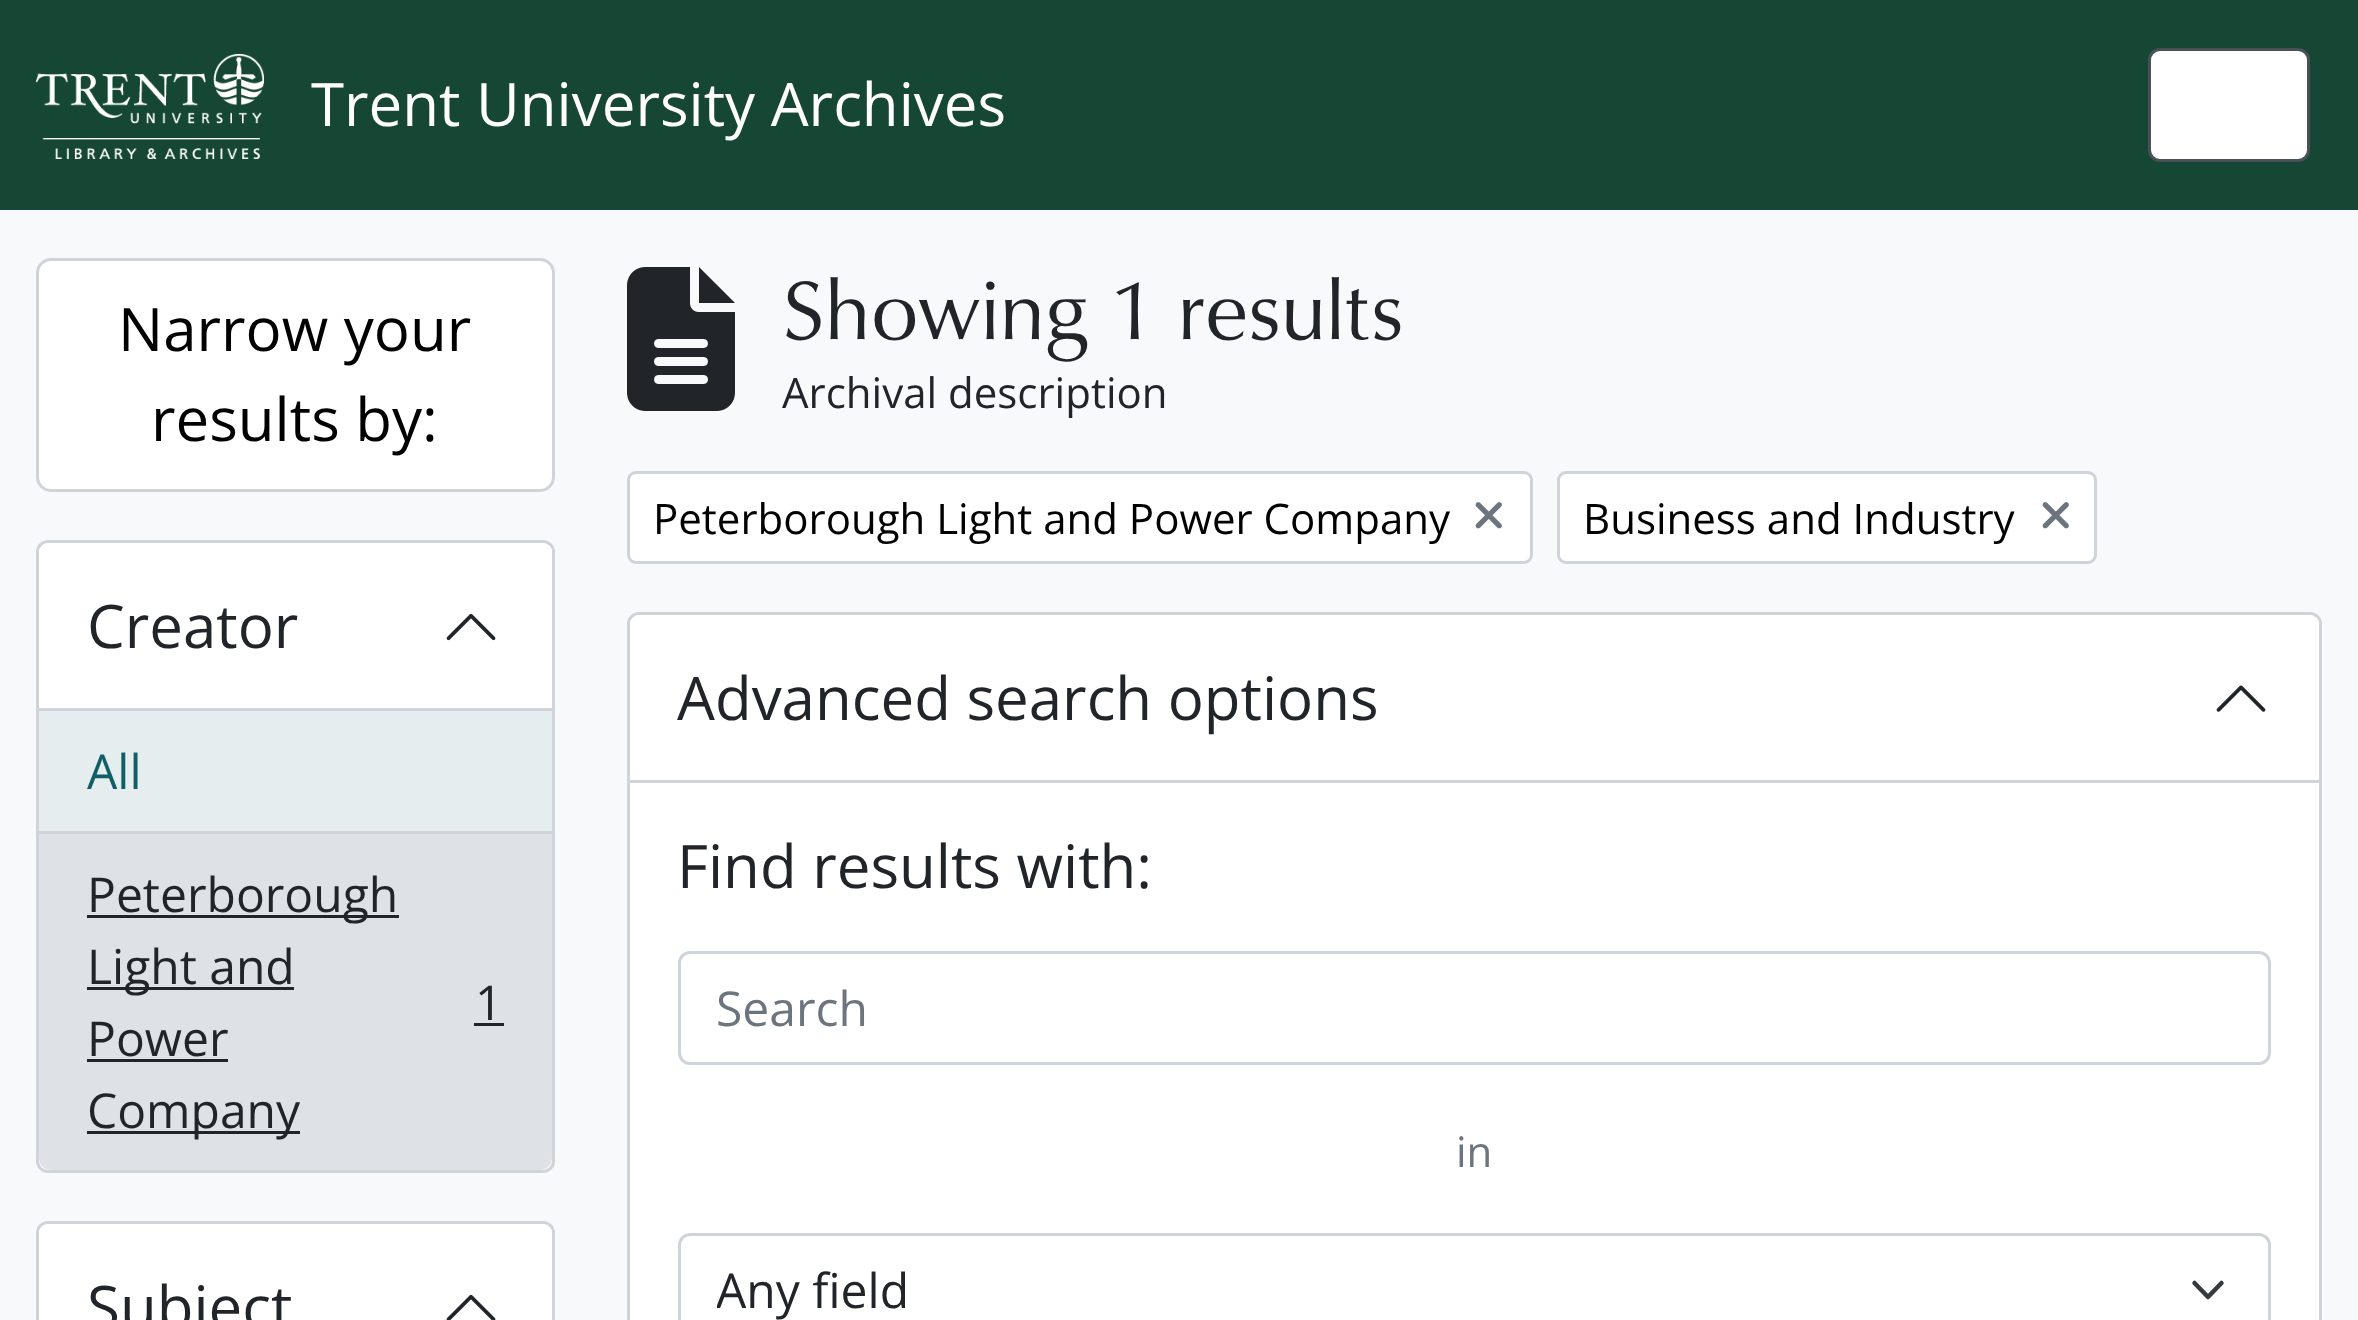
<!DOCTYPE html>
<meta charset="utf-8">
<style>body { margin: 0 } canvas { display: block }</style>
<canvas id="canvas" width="2358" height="1320"></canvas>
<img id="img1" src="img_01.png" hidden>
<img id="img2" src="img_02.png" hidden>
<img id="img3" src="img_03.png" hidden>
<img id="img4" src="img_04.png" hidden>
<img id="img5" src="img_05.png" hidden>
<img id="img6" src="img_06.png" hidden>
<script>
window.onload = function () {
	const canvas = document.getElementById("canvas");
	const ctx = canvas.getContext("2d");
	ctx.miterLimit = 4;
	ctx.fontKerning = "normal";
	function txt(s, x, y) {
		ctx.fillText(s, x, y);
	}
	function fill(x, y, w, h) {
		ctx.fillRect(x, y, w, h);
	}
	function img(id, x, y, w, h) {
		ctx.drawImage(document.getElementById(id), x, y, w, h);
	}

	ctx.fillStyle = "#F8F9FA";
	fill(0, 0, 2358, 1320);
	ctx.fillStyle = "#154734";
	fill(0, 0, 2358, 210);
	img("img1", 36, 54, 228, 105);
	ctx.fillStyle = "#FFFFFF";
	ctx.beginPath();
	ctx.roundRect(2149.5, 49.5, 159, 111, 10.5);
	ctx.fill();
	ctx.strokeStyle = "#495057";
	ctx.lineWidth = 3;
	ctx.stroke();
	ctx.beginPath();
	ctx.roundRect(37.5, 259.5, 516, 231, 13.5);
	ctx.fill();
	ctx.strokeStyle = "#CED4DA";
	ctx.stroke();
	ctx.beginPath();
	ctx.roundRect(37.5, 541.5, 516, 630, 10.5);
	ctx.fill();
	ctx.stroke();
	ctx.beginPath();
	ctx.roundRect(39, 543, 513, 168, [9, 9, 0, 0]);
	ctx.fill();
	ctx.fillStyle = "#CED4DA";
	fill(39, 708, 513, 3);
	img("img2", 446, 613, 50, 28);
	ctx.fillStyle = "#E5EDEE";
	fill(39, 711, 513, 120);
	ctx.fillStyle = "#CED4DA";
	fill(39, 831, 513, 3);
	ctx.fillStyle = "#DEE2E6";
	ctx.beginPath();
	ctx.roundRect(39, 834, 513, 336, [0, 0, 12, 12]);
	ctx.fill();
	ctx.fillStyle = "#212529";
	fill(87, 915, 312, 3);
	fill(87, 987, 207, 3);
	fill(474, 1023, 30, 3);
	fill(87, 1059, 141, 3);
	fill(87, 1131, 213, 3);
	ctx.beginPath();
	ctx.roundRect(37.5, 1222.5, 516, 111, 10.5);
	ctx.stroke();
	ctx.fillStyle = "#FFFFFF";
	ctx.beginPath();
	ctx.moveTo(48, 1224);
	ctx.lineTo(543, 1224);
	ctx.bezierCurveTo(548, 1224, 552, 1228, 552, 1233);
	ctx.lineTo(552, 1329);
	ctx.lineTo(39, 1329);
	ctx.lineTo(39, 1233);
	ctx.bezierCurveTo(39, 1228, 43, 1224, 48, 1224);
	ctx.closePath();
	ctx.fill();
	img("img3", 446, 1294, 50, 26);
	img("img4", 627, 267, 108, 144);
	ctx.beginPath();
	ctx.roundRect(628.5, 472.5, 903, 90, 7.5);
	ctx.fill();
	ctx.stroke();
	img("img5", 1475, 502, 27, 27);
	ctx.beginPath();
	ctx.roundRect(1558.5, 472.5, 537, 90, 7.5);
	ctx.fill();
	ctx.stroke();
	img("img5", 2042, 502, 27, 27);
	ctx.beginPath();
	ctx.roundRect(628.5, 613.5, 1692, 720, 10.5);
	ctx.fill();
	ctx.stroke();
	ctx.beginPath();
	ctx.roundRect(630, 615, 1689, 168, [9, 9, 0, 0]);
	ctx.fill();
	ctx.fillStyle = "#CED4DA";
	fill(630, 780, 1689, 3);
	img("img6", 2216, 685, 50, 27);
	ctx.beginPath();
	ctx.roundRect(679.5, 952.5, 1590, 111, 10.5);
	ctx.stroke();
	ctx.beginPath();
	ctx.moveTo(2194.5, 1283);
	ctx.lineTo(2208, 1297);
	ctx.lineTo(2221.5, 1283);
	ctx.strokeStyle = "#343A40";
	ctx.lineWidth = 4.5;
	ctx.lineCap = "round";
	ctx.lineJoin = "round";
	ctx.stroke();
	ctx.beginPath();
	ctx.roundRect(679.5, 1234.5, 1590, 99, 10.5);
	ctx.strokeStyle = "#CED4DA";
	ctx.lineWidth = 3;
	ctx.lineJoin = "miter";
	ctx.stroke();
	ctx.font = "60px Open Sans";
	ctx.fillStyle = "#FFFFFF";
	txt("Trent University Archives", 311, 126);
	ctx.fillStyle = "#000000";
	txt("Narrow your", 118, 351);
	txt("results by:", 151, 441);
	ctx.fillStyle = "#212529";
	txt("Creator", 87, 648);
	ctx.font = "48px Open Sans";
	ctx.fillStyle = "#115E67";
	txt("All", 87, 789);
	ctx.fillStyle = "#212529";
	txt("Peterborough", 87, 912);
	txt("Light and", 87, 984);
	txt("1", 475, 1020);
	txt("Power", 87, 1056);
	txt("Company", 87, 1128);
	ctx.font = "60px Open Sans";
	txt("Subject", 87, 1329);
	ctx.font = "84.75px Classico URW";
	txt("Showing 1 results", 782, 339);
	ctx.font = "42px Open Sans";
	txt("Archival description", 782, 408);
	ctx.fillStyle = "#000000";
	txt("Peterborough Light and Power Company", 653, 534);
	txt("Business and Industry", 1583, 534);
	ctx.font = "60px Open Sans";
	ctx.fillStyle = "#212529";
	txt("Advanced search options", 677, 720);
	txt("Find results with:", 677, 888);
	ctx.font = "48px Open Sans";
	ctx.fillStyle = "#6C757D";
	txt("Search", 716, 1026);
	ctx.font = "42px Open Sans";
	txt("in", 1456, 1167);
	ctx.save();
	ctx.beginPath();
	ctx.rect(717, 1254, 1443, 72);
	ctx.clip();
	ctx.font = "48px Open Sans";
	ctx.fillStyle = "#212529";
	txt("Any field", 716, 1308);
	ctx.restore();
};
</script>
